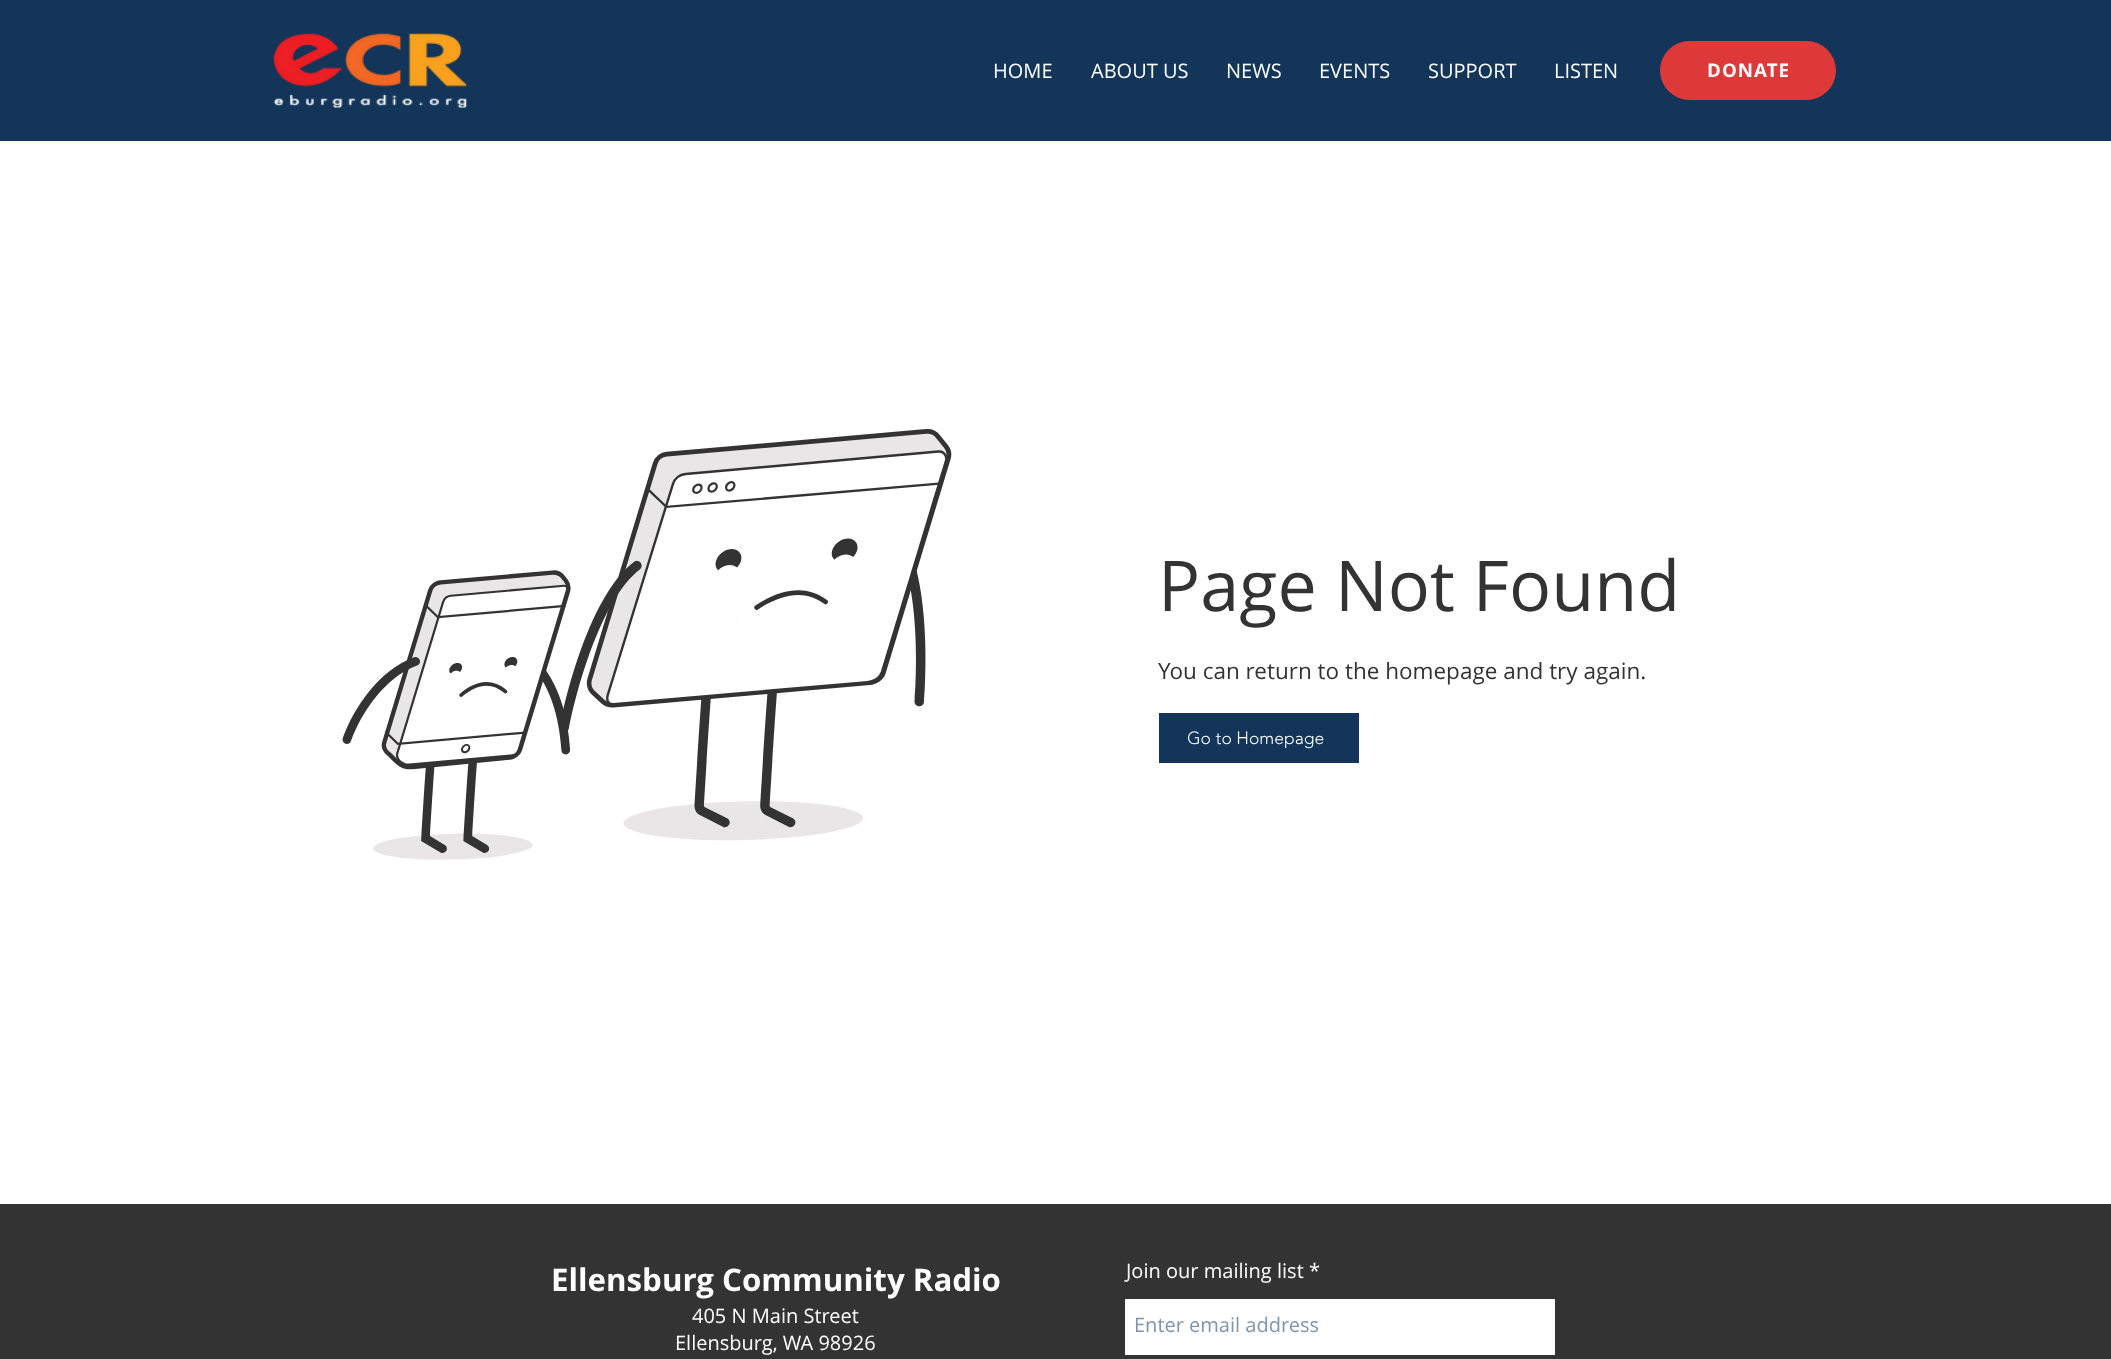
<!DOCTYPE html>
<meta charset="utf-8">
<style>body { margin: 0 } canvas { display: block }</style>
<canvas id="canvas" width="2111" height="1359"></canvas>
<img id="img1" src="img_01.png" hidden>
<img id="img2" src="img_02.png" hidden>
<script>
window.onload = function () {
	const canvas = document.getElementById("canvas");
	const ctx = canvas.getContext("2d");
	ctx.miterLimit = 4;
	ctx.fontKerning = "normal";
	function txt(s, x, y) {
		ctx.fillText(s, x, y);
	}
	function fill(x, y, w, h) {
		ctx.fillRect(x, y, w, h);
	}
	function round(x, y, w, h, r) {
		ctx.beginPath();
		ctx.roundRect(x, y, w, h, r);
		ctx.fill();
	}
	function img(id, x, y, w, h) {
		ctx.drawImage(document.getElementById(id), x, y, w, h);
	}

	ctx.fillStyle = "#FFFFFF";
	fill(0, 0, 2111, 1359);
	ctx.fillStyle = "#123559";
	fill(0, 0, 2111, 141);
	img("img1", 273, 33, 194, 75);
	ctx.fillStyle = "#DE3939";
	round(1660, 41, 176, 59, 29.5);
	img("img2", 342, 429, 610, 431);
	ctx.fillStyle = "#123559";
	fill(1159, 713, 200, 50);
	ctx.fillStyle = "#333333";
	fill(0, 1204, 2111, 155);
	ctx.fillStyle = "#FFFFFF";
	fill(1125, 1299, 430, 56);
	ctx.font = "20px Open Sans";
	txt("HOME", 993, 78);
	txt("ABOUT US", 1091, 78);
	txt("NEWS", 1226, 78);
	txt("EVENTS", 1319, 78);
	txt("SUPPORT", 1428, 78);
	txt("LISTEN", 1554, 78);
	ctx.letterSpacing = "1px";
	ctx.font = "bold 18.75px Open Sans";
	txt("DONATE", 1707, 77);
	ctx.letterSpacing = "0px";
	ctx.font = "70px Open Sans";
	ctx.fillStyle = "#333333";
	txt("Page Not Found", 1158, 611);
	ctx.font = "22.5px Open Sans";
	txt("You can return to the homepage and try again.", 1158, 679);
	ctx.font = "300 17.5px 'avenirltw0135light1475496'";
	ctx.fillStyle = "#FFFFFF";
	txt("Go to Homepage", 1187, 744);
	ctx.font = "bold 31.25px Open Sans";
	txt("Ellensburg Community Radio", 551, 1291);
	ctx.font = "20px Open Sans";
	txt("405 N Main Street", 692, 1323);
	txt("Ellensburg, WA 98926", 675, 1350);
	txt("Join our mailing list *", 1126, 1278);
	ctx.fillStyle = "#7E95AC";
	txt("Enter email address", 1134, 1332);
};
</script>
